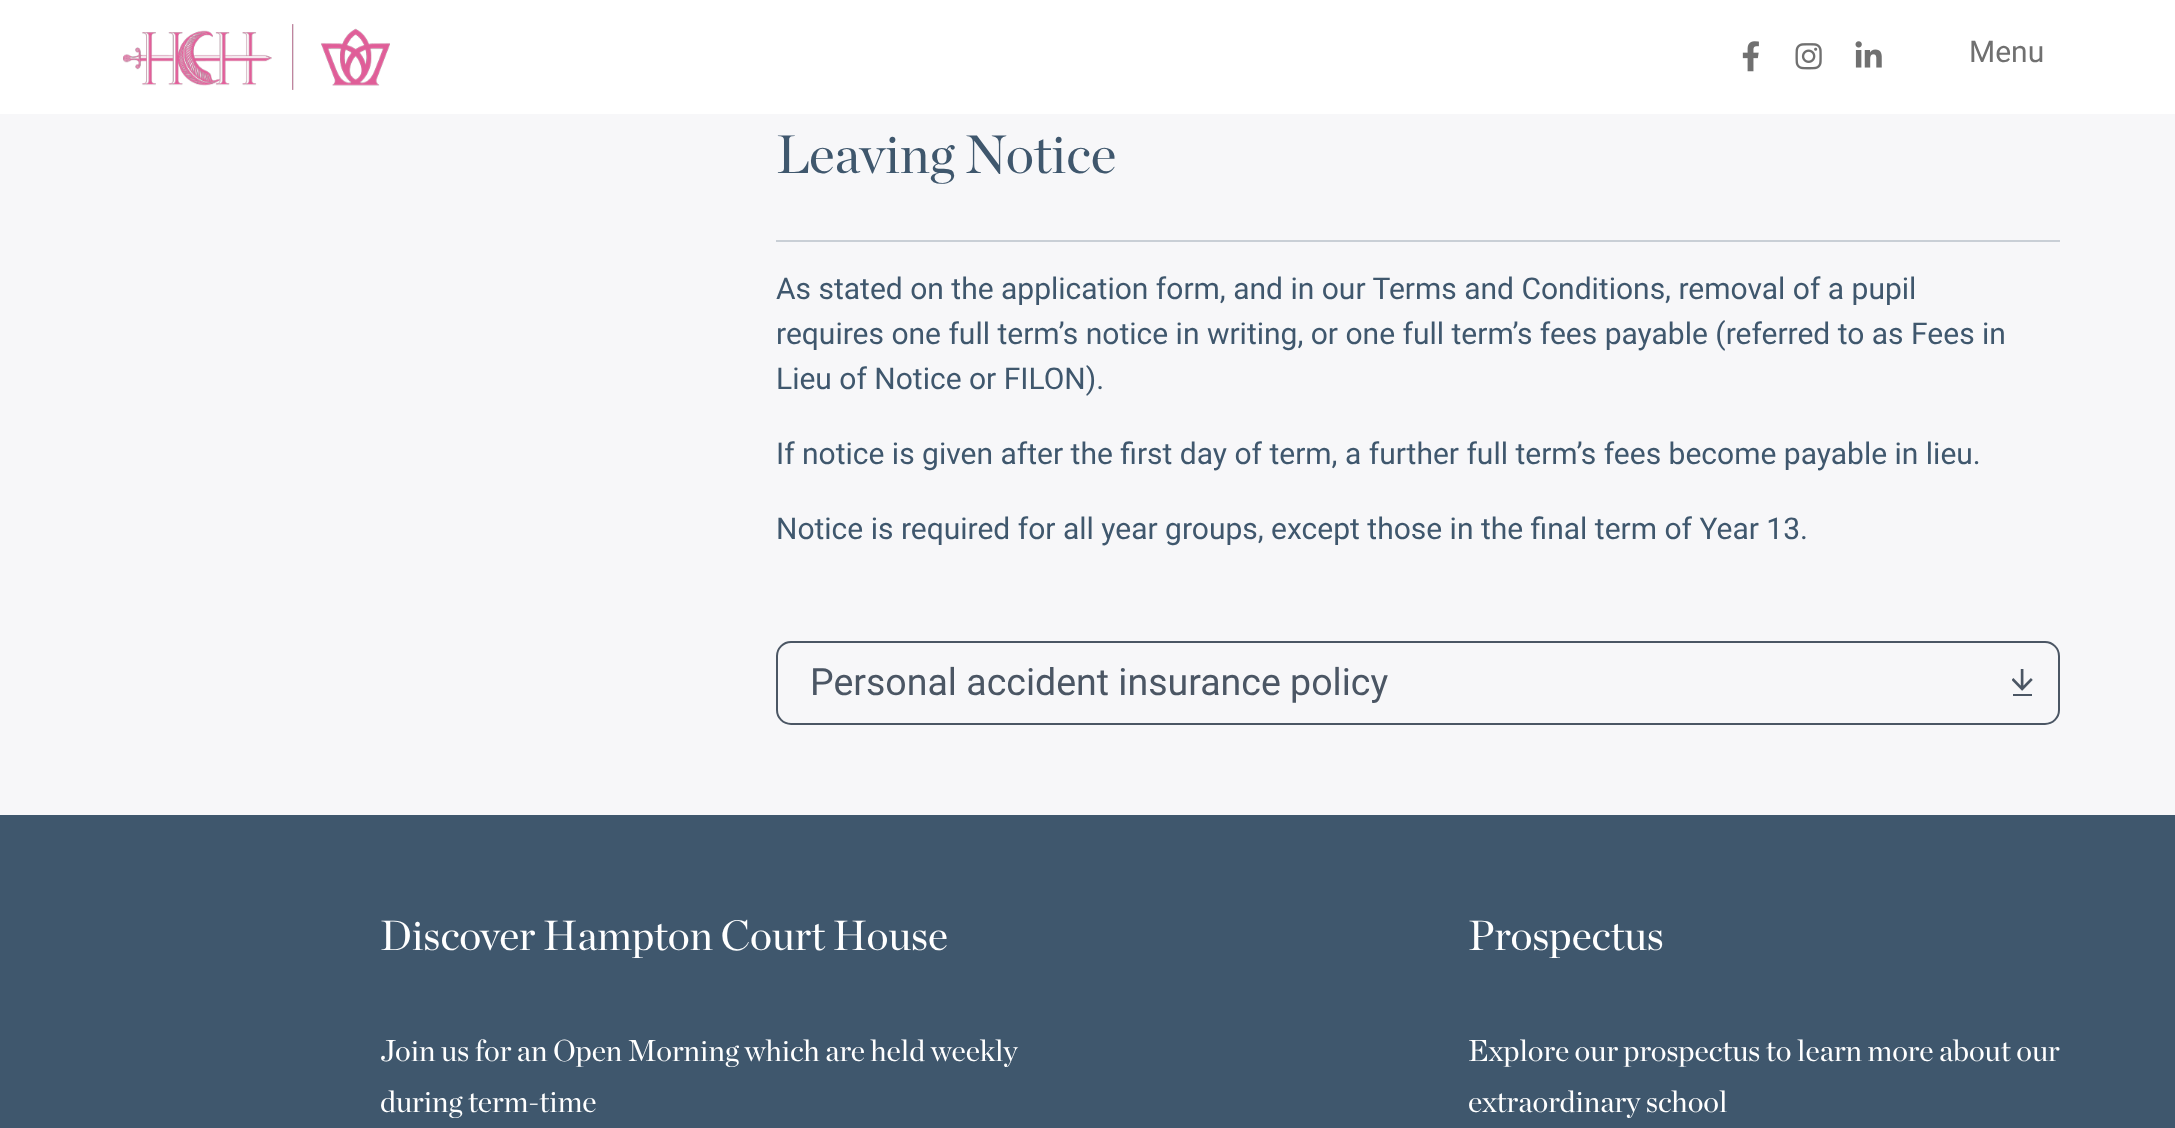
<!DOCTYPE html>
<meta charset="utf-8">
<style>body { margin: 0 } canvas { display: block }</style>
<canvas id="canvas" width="2175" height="1128"></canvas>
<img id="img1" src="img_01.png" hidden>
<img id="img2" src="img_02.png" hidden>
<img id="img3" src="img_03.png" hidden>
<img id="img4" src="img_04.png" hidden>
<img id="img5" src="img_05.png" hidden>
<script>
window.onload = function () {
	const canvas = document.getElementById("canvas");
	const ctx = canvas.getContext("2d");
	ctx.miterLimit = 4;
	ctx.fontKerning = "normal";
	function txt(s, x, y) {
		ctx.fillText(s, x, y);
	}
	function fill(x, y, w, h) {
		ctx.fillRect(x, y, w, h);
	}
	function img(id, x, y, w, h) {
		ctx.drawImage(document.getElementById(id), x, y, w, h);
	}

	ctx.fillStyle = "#F7F7F9";
	fill(0, 0, 2175, 1128);
	ctx.fillStyle = "#FFFFFF";
	fill(0, 0, 2175, 114);
	img("img1", 123, 24, 267, 66);
	img("img2", 1742, 41, 17, 31);
	img("img3", 1795, 43, 27, 27);
	img("img4", 1855, 41, 27, 27);
	ctx.fillStyle = "#C9CFD6";
	fill(776, 240, 1284, 2);
	ctx.beginPath();
	ctx.roundRect(777, 642, 1282, 82, 14);
	ctx.strokeStyle = "#4B5664";
	ctx.lineWidth = 2;
	ctx.stroke();
	img("img5", 2012, 669, 21, 27);
	ctx.fillStyle = "#3F576D";
	fill(0, 815, 2175, 313);
	ctx.font = "30px Roboto";
	ctx.fillStyle = "#707070";
	txt("Menu", 1969, 62);
	ctx.font = "54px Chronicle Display";
	ctx.fillStyle = "#3F576D";
	txt("Leaving Notice", 776, 173);
	ctx.font = "30px Roboto";
	txt("As stated on the application form, and in our Terms and Conditions, removal of a pupil", 776, 299);
	txt("requires one full term’s notice in writing, or one full term’s fees payable (referred to as Fees in", 776, 344);
	txt("Lieu of Notice or FILON).", 776, 389);
	txt("If notice is given after the first day of term, a further full term’s fees become payable in lieu.", 776, 464);
	txt("Notice is required for all year groups, except those in the final term of Year 13.", 776, 539);
	ctx.font = "37.5px Roboto";
	ctx.fillStyle = "#4B5664";
	txt("Personal accident insurance policy", 810, 695);
	ctx.font = "42px Chronicle Display";
	ctx.fillStyle = "#FFFFFF";
	txt("Discover Hampton Court House", 380, 950);
	ctx.font = "30px Chronicle Display";
	txt("Join us for an Open Morning which are held weekly", 380, 1061);
	txt("during term-time", 380, 1112);
	ctx.font = "42px Chronicle Display";
	txt("Prospectus", 1468, 950);
	ctx.font = "30px Chronicle Display";
	txt("Explore our prospectus to learn more about our", 1468, 1061);
	txt("extraordinary school", 1468, 1112);
};
</script>
